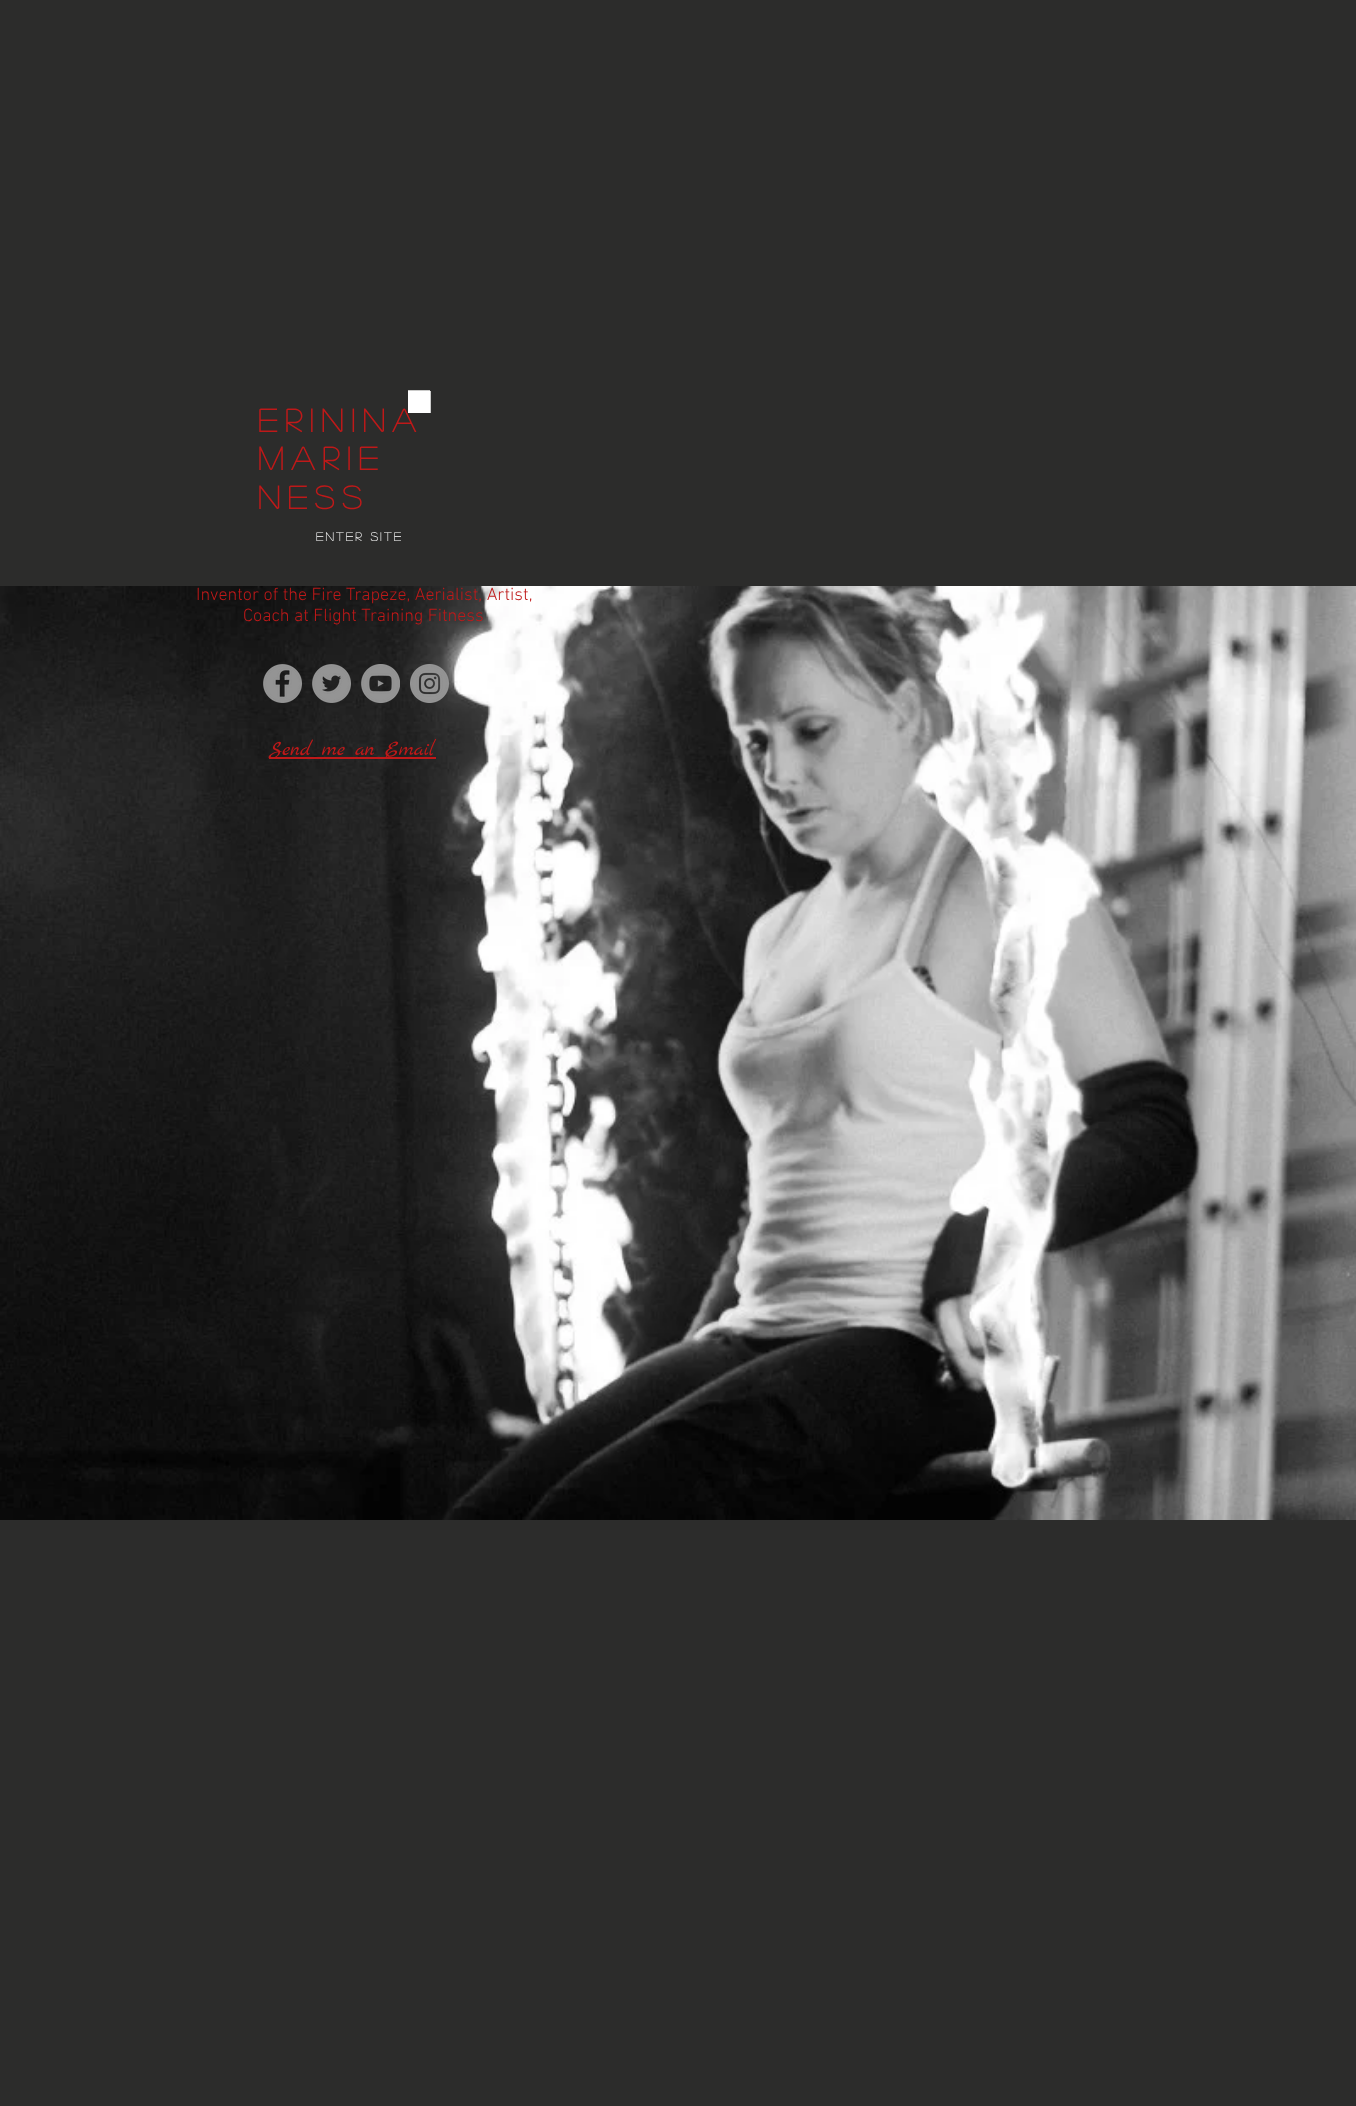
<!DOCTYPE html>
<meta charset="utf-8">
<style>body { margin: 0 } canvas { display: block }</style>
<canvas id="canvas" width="1356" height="2106"></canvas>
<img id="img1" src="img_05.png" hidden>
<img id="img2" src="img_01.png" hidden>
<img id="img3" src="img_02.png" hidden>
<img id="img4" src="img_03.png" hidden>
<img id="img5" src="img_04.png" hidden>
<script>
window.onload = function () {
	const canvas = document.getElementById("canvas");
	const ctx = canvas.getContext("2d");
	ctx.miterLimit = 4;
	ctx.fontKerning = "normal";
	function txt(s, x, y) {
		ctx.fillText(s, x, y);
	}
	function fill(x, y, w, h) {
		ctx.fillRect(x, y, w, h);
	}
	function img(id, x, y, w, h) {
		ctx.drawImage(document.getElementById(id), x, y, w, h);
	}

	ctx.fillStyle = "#2C2C2B";
	fill(0, 0, 1356, 2106);
	img("img1", 0, 586, 1356, 934);
	img("img2", 263, 664, 39, 39);
	img("img3", 312, 664, 39, 39);
	img("img4", 361, 664, 39, 39);
	img("img5", 410, 664, 39, 39);
	ctx.fillStyle = "#BF1919";
	fill(269, 757, 167, 2);
	ctx.letterSpacing = "8px";
	ctx.font = "bold 32px 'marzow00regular'";
	txt("Erinina", 258, 432);
	ctx.fillStyle = "#FFFFFF";
	fill(408, 391, 22, 22);
	ctx.beginPath();
	ctx.moveTo(408, 391);
	ctx.lineTo(430, 391);
	ctx.lineTo(430, 413);
	ctx.lineTo(430, 391);
	ctx.closePath();
	ctx.strokeStyle = "#FFFFFF";
	ctx.stroke();
	ctx.fillStyle = "#BF1919";
	txt("Marie", 258, 470);
	txt("Ness", 258, 509);
	ctx.letterSpacing = "2.4px";
	ctx.font = "bold 12px 'marzow00regular'";
	ctx.fillStyle = "#FFFFFF";
	txt("Enter Site", 316, 541);
	ctx.letterSpacing = "0px";
	ctx.font = "300 18px 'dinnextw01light'";
	ctx.fillStyle = "#BF1919";
	txt("Inventor of the Fire Trapeze, Aerialist, Artist,", 196, 600);
	txt("Coach at Flight Training Fitness", 243, 621);
	ctx.font = "21px Marck Script";
	txt("Send me an Email", 269, 755);
};
</script>
